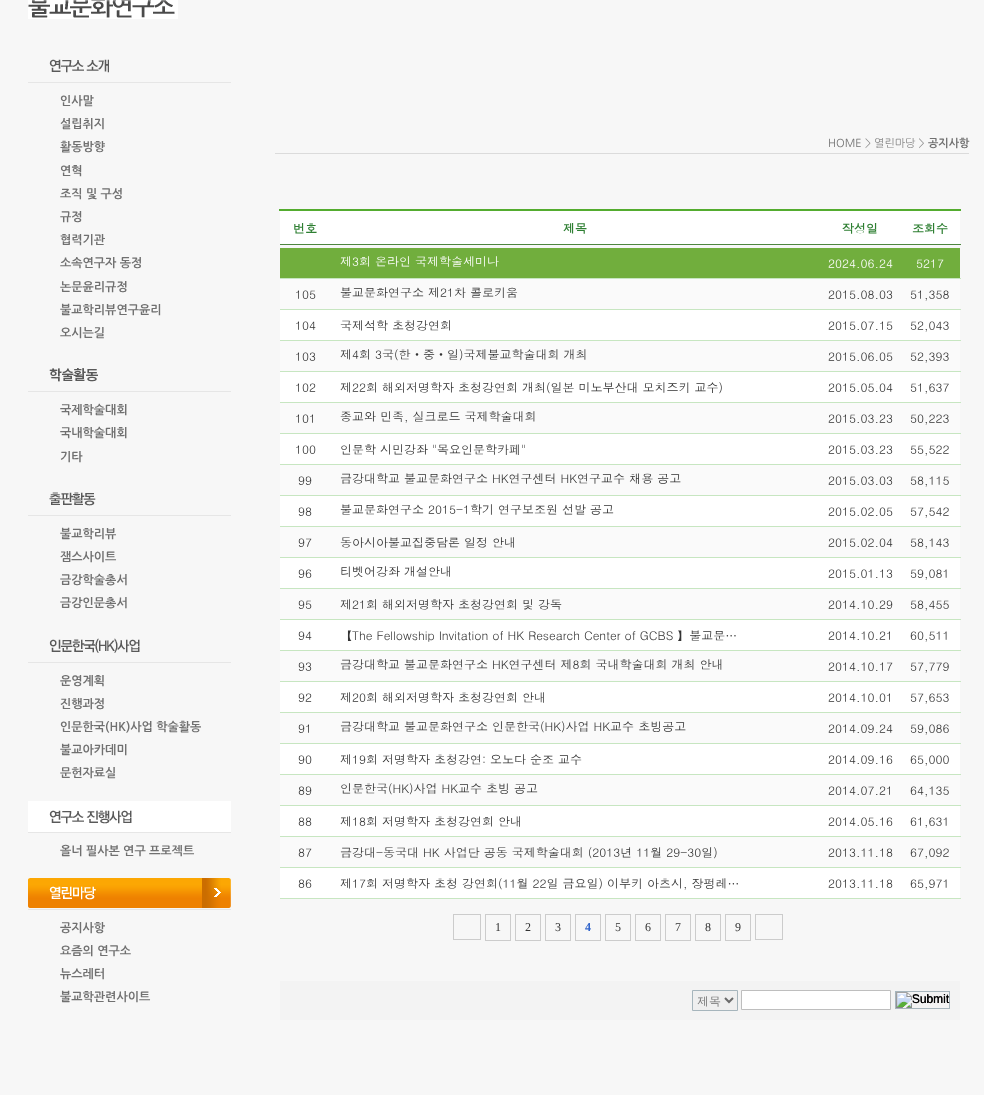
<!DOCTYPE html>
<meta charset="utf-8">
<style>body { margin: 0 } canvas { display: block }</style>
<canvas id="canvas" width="984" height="1095"></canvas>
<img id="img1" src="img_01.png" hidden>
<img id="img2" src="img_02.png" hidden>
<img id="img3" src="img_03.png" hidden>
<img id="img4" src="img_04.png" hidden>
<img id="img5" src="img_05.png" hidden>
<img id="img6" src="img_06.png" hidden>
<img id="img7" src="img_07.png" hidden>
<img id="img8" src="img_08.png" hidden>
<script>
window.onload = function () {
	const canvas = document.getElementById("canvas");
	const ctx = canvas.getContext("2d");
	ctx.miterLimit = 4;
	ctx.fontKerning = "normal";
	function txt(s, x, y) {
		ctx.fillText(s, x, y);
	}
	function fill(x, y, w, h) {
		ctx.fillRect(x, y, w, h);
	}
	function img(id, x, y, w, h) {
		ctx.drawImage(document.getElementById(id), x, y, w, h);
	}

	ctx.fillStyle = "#F7F7F7";
	fill(0, 0, 984, 1095);
	img("img1", 28, 0, 150, 19);
	img("img2", 28, 59, 203, 24);
	img("img3", 28, 368, 203, 24);
	img("img4", 28, 492, 203, 24);
	img("img5", 28, 638, 203, 25);
	img("img6", 28, 801, 203, 32);
	img("img7", 28, 878, 203, 32);
	ctx.fillStyle = "#DBDBDB";
	fill(275, 153, 694, 1);
	ctx.fillStyle = "#54AC2F";
	fill(279, 209, 682, 2);
	ctx.fillStyle = "#FFFFFF";
	fill(280, 211, 680, 33);
	ctx.fillStyle = "#4E8740";
	fill(280, 244, 681, 1);
	ctx.fillStyle = "#71AE3D";
	fill(280, 248, 680, 30);
	ctx.fillStyle = "#C7E6C1";
	fill(280, 278, 681, 1);
	ctx.fillStyle = "#FAFAFA";
	fill(280, 279, 680, 30);
	ctx.fillStyle = "#C7E6C1";
	fill(280, 309, 681, 1);
	ctx.fillStyle = "#FFFFFF";
	fill(280, 310, 680, 30);
	ctx.fillStyle = "#C7E6C1";
	fill(280, 340, 681, 1);
	ctx.fillStyle = "#FAFAFA";
	fill(280, 341, 680, 30);
	ctx.fillStyle = "#C7E6C1";
	fill(280, 371, 681, 1);
	ctx.fillStyle = "#FFFFFF";
	fill(280, 372, 680, 30);
	ctx.fillStyle = "#C7E6C1";
	fill(280, 402, 681, 1);
	ctx.fillStyle = "#FAFAFA";
	fill(280, 403, 680, 30);
	ctx.fillStyle = "#C7E6C1";
	fill(280, 433, 681, 1);
	ctx.fillStyle = "#FFFFFF";
	fill(280, 434, 680, 30);
	ctx.fillStyle = "#C7E6C1";
	fill(280, 464, 681, 1);
	ctx.fillStyle = "#FAFAFA";
	fill(280, 465, 680, 30);
	ctx.fillStyle = "#C7E6C1";
	fill(280, 495, 681, 1);
	ctx.fillStyle = "#FFFFFF";
	fill(280, 496, 680, 30);
	ctx.fillStyle = "#C7E6C1";
	fill(280, 526, 681, 1);
	ctx.fillStyle = "#FAFAFA";
	fill(280, 527, 680, 30);
	ctx.fillStyle = "#C7E6C1";
	fill(280, 557, 681, 1);
	ctx.fillStyle = "#FFFFFF";
	fill(280, 558, 680, 30);
	ctx.fillStyle = "#C7E6C1";
	fill(280, 588, 681, 1);
	ctx.fillStyle = "#FAFAFA";
	fill(280, 589, 680, 30);
	ctx.fillStyle = "#C7E6C1";
	fill(280, 619, 681, 1);
	ctx.fillStyle = "#FFFFFF";
	fill(280, 620, 680, 30);
	ctx.fillStyle = "#C7E6C1";
	fill(280, 650, 681, 1);
	ctx.fillStyle = "#FAFAFA";
	fill(280, 651, 680, 30);
	ctx.fillStyle = "#C7E6C1";
	fill(280, 681, 681, 1);
	ctx.fillStyle = "#FFFFFF";
	fill(280, 682, 680, 30);
	ctx.fillStyle = "#C7E6C1";
	fill(280, 712, 681, 1);
	ctx.fillStyle = "#FAFAFA";
	fill(280, 713, 680, 30);
	ctx.fillStyle = "#C7E6C1";
	fill(280, 743, 681, 1);
	ctx.fillStyle = "#FFFFFF";
	fill(280, 744, 680, 30);
	ctx.fillStyle = "#C7E6C1";
	fill(280, 774, 681, 1);
	ctx.fillStyle = "#FAFAFA";
	fill(280, 775, 680, 30);
	ctx.fillStyle = "#C7E6C1";
	fill(280, 805, 681, 1);
	ctx.fillStyle = "#FFFFFF";
	fill(280, 806, 680, 30);
	ctx.fillStyle = "#C7E6C1";
	fill(280, 836, 681, 1);
	ctx.fillStyle = "#FAFAFA";
	fill(280, 837, 680, 30);
	ctx.fillStyle = "#C7E6C1";
	fill(280, 867, 681, 1);
	ctx.fillStyle = "#FFFFFF";
	fill(280, 868, 680, 30);
	ctx.fillStyle = "#C7E6C1";
	fill(280, 898, 681, 1);
	ctx.strokeStyle = "#CCCCCC";
	ctx.strokeRect(453.5, 914.5, 27, 25);
	ctx.strokeRect(485.5, 914.5, 25, 26);
	ctx.strokeRect(515.5, 914.5, 25, 26);
	ctx.strokeRect(545.5, 914.5, 25, 26);
	ctx.strokeRect(575.5, 914.5, 25, 26);
	ctx.strokeRect(605.5, 914.5, 25, 26);
	ctx.strokeRect(635.5, 914.5, 25, 26);
	ctx.strokeRect(665.5, 914.5, 25, 26);
	ctx.strokeRect(695.5, 914.5, 25, 26);
	ctx.strokeRect(725.5, 914.5, 25, 26);
	ctx.strokeRect(755.5, 914.5, 27, 25);
	ctx.fillStyle = "#F3F3F3";
	fill(280, 981, 680, 39);
	ctx.fillStyle = "#EFEFEF";
	ctx.beginPath();
	ctx.rect(692.5, 990.5, 45, 20);
	ctx.fill();
	ctx.strokeStyle = "#A6B5BC";
	ctx.stroke();
	ctx.beginPath();
	ctx.moveTo(725, 998);
	ctx.lineTo(729, 1002);
	ctx.lineTo(733, 998);
	ctx.strokeStyle = "#6B6B6B";
	ctx.lineWidth = 2;
	ctx.stroke();
	ctx.fillStyle = "#FFFFFF";
	ctx.beginPath();
	ctx.rect(741.5, 990.5, 149, 19);
	ctx.fill();
	ctx.strokeStyle = "#BEBEBE";
	ctx.lineWidth = 1;
	ctx.stroke();
	ctx.strokeStyle = "#A6B5BC";
	ctx.strokeRect(895.5, 991.5, 54, 17);
	img("img8", 896, 992, 53, 16);
	ctx.font = "bold 12px NanumGothic";
	ctx.fillStyle = "#707070";
	txt("인사말", 60, 105);
	txt("설립취지", 60, 128);
	txt("활동방향", 60, 151);
	txt("연혁", 60, 175);
	txt("조직 및 구성", 60, 198);
	txt("규정", 60, 221);
	txt("협력기관", 60, 244);
	txt("소속연구자 동정", 60, 267);
	txt("논문윤리규정", 60, 291);
	txt("불교학리뷰연구윤리", 60, 314);
	txt("오시는길", 60, 337);
	txt("국제학술대회", 60, 414);
	txt("국내학술대회", 60, 437);
	txt("기타", 60, 461);
	txt("불교학리뷰", 60, 538);
	txt("잼스사이트", 60, 561);
	txt("금강학술총서", 60, 584);
	txt("금강인문총서", 60, 607);
	txt("운영계획", 60, 685);
	txt("진행과정", 60, 708);
	txt("인문한국(HK)사업 학술활동", 60, 731);
	txt("불교아카데미", 60, 754);
	txt("문헌자료실", 60, 777);
	txt("올너 필사본 연구 프로젝트", 60, 855);
	txt("공지사항", 60, 932);
	txt("요즘의 연구소", 60, 955);
	txt("뉴스레터", 60, 978);
	txt("불교학관련사이트", 60, 1001);
	ctx.font = "11px NanumGothic";
	txt("HOME", 828, 147);
	ctx.fillStyle = "#898989";
	txt("> 열린마당 >", 865, 147);
	ctx.font = "bold 11px NanumGothic";
	ctx.fillStyle = "#707070";
	txt("공지사항", 928, 147);
	ctx.font = "bold 12px Dotum";
	ctx.fillStyle = "#2E7F32";
	txt("번호", 293, 233);
	txt("제목", 563, 233);
	txt("작성일", 842, 233);
	txt("조회수", 912, 233);
	ctx.font = "12px Dotum";
	ctx.fillStyle = "#FFFFFF";
	txt("제3회 온라인 국제학술세미나", 340, 266);
	txt("2024.06.24", 828, 268);
	txt("5217", 916, 268);
	ctx.fillStyle = "#333333";
	txt("105", 295, 299);
	txt("불교문화연구소 제21차 콜로키움", 340, 297);
	txt("2015.08.03", 828, 299);
	txt("51,358", 910, 299);
	txt("104", 295, 330);
	txt("국제석학 초청강연회", 340, 330);
	txt("2015.07.15", 828, 330);
	txt("52,043", 910, 330);
	txt("103", 295, 361);
	txt("제4회 3국(한", 340, 359);
	ctx.font = "12px Noto Sans CJK KR";
	txt("‧", 411, 359);
	ctx.font = "12px Dotum";
	txt("중", 423, 359);
	ctx.font = "12px Noto Sans CJK KR";
	txt("‧", 435, 359);
	ctx.font = "12px Dotum";
	txt("일)국제불교학술대회 개최", 447, 359);
	txt("2015.06.05", 828, 361);
	txt("52,393", 910, 361);
	txt("102", 295, 392);
	txt("제22회 해외저명학자 초청강연회 개최(일본 미노부산대 모치즈키 교수)", 340, 392);
	txt("2015.05.04", 828, 392);
	txt("51,637", 910, 392);
	txt("101", 295, 423);
	txt("종교와 민족, 실크로드 국제학술대회", 340, 421);
	txt("2015.03.23", 828, 423);
	txt("50,223", 910, 423);
	txt("100", 295, 454);
	txt("인문학 시민강좌 \"목요인문학카페\"", 340, 454);
	txt("2015.03.23", 828, 454);
	txt("55,522", 910, 454);
	txt("99", 298, 485);
	txt("금강대학교 불교문화연구소 HK연구센터 HK연구교수 채용 공고", 340, 483);
	txt("2015.03.03", 828, 485);
	txt("58,115", 910, 485);
	txt("98", 298, 516);
	txt("불교문화연구소 2015-1학기 연구보조원 선발 공고", 340, 514);
	txt("2015.02.05", 828, 516);
	txt("57,542", 910, 516);
	txt("97", 298, 547);
	txt("동아시아불교집중담론 일정 안내", 340, 547);
	txt("2015.02.04", 828, 547);
	txt("58,143", 910, 547);
	txt("96", 298, 578);
	txt("티벳어강좌 개설안내", 340, 576);
	txt("2015.01.13", 828, 578);
	txt("59,081", 910, 578);
	txt("95", 298, 609);
	txt("제21회 해외저명학자 초청강연회 및 강독", 340, 609);
	txt("2014.10.29", 828, 609);
	txt("58,455", 910, 609);
	txt("94", 298, 640);
	txt("【The Fellowship Invitation of HK Research Center of GCBS 】불교문…", 340, 640);
	txt("2014.10.21", 828, 640);
	txt("60,511", 910, 640);
	txt("93", 298, 671);
	txt("금강대학교 불교문화연구소 HK연구센터 제8회 국내학술대회 개최 안내", 340, 669);
	txt("2014.10.17", 828, 671);
	txt("57,779", 910, 671);
	txt("92", 298, 702);
	txt("제20회 해외저명학자 초청강연회 안내", 340, 702);
	txt("2014.10.01", 828, 702);
	txt("57,653", 910, 702);
	txt("91", 298, 733);
	txt("금강대학교 불교문화연구소 인문한국(HK)사업 HK교수 초빙공고", 340, 731);
	txt("2014.09.24", 828, 733);
	txt("59,086", 910, 733);
	txt("90", 298, 764);
	txt("제19회 저명학자 초청강연: 오노다 순조 교수", 340, 764);
	txt("2014.09.16", 828, 764);
	txt("65,000", 910, 764);
	txt("89", 298, 795);
	txt("인문한국(HK)사업 HK교수 초빙 공고", 340, 793);
	txt("2014.07.21", 828, 795);
	txt("64,135", 910, 795);
	txt("88", 298, 826);
	txt("제18회 저명학자 초청강연회 안내", 340, 826);
	txt("2014.05.16", 828, 826);
	txt("61,631", 910, 826);
	txt("87", 298, 857);
	txt("금강대-동국대 HK 사업단 공동 국제학술대회 (2013년 11월 29-30일)", 340, 857);
	txt("2013.11.18", 828, 857);
	txt("67,092", 910, 857);
	txt("86", 298, 888);
	txt("제17회 저명학자 초청 강연회(11월 22일 금요일) 이부키 아츠시, 장펑레…", 340, 888);
	txt("2013.11.18", 828, 888);
	txt("65,971", 910, 888);
	ctx.font = "12px Liberation Serif";
	txt("1", 495, 931);
	txt("2", 525, 931);
	txt("3", 555, 931);
	ctx.font = "bold 12px Liberation Serif";
	ctx.fillStyle = "#3366CC";
	txt("4", 585, 931);
	ctx.font = "12px Liberation Serif";
	ctx.fillStyle = "#333333";
	txt("5", 615, 931);
	txt("6", 645, 931);
	txt("7", 675, 931);
	txt("8", 705, 931);
	txt("9", 735, 931);
	ctx.font = "12px Dotum";
	ctx.fillStyle = "#707070";
	txt("제목", 697, 1006);
	ctx.font = "12px Liberation Sans";
	ctx.fillStyle = "#000000";
	txt("Submit", 912, 1003);
};
</script>
